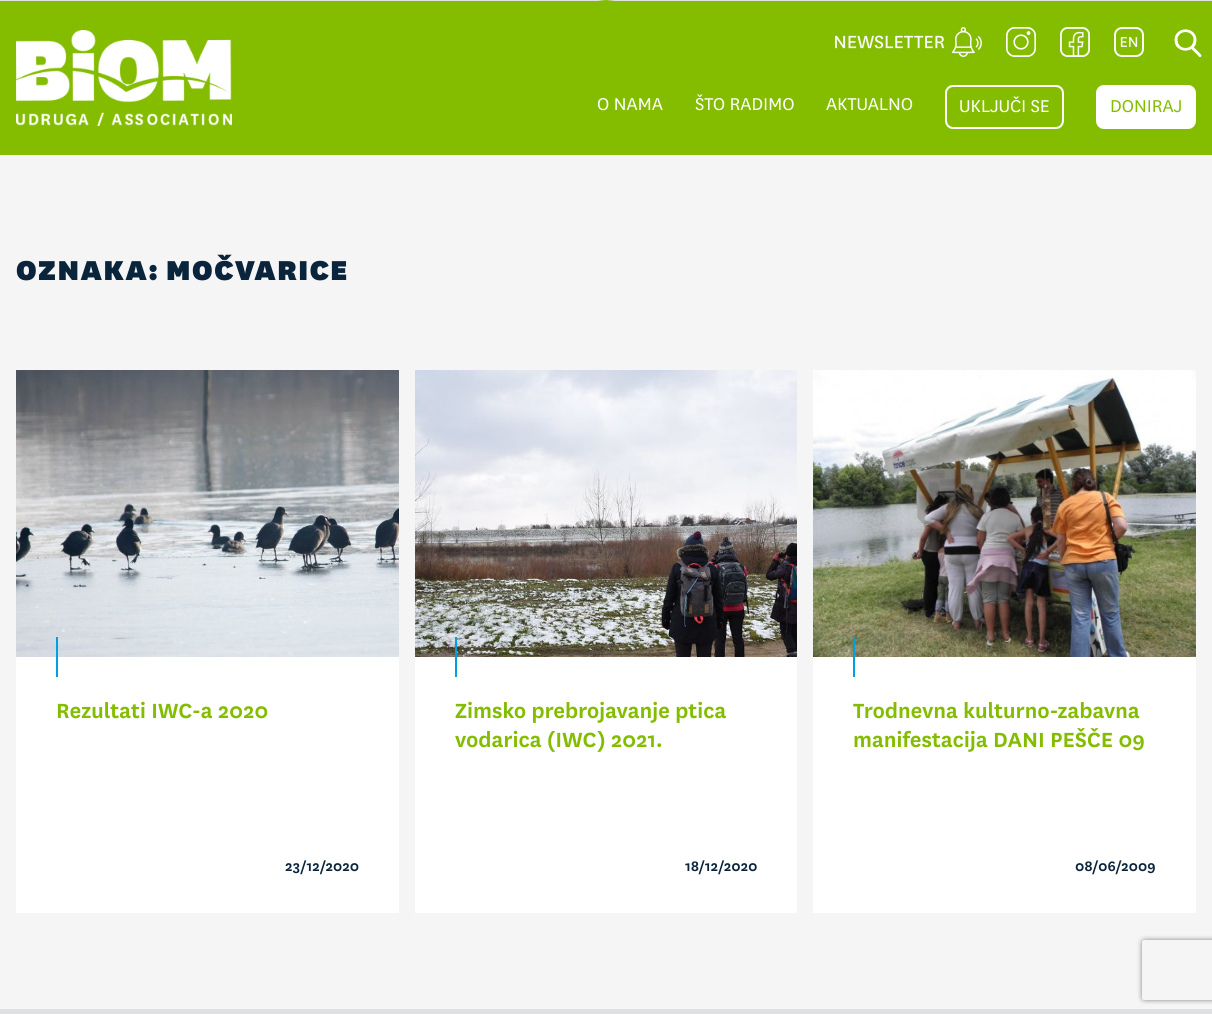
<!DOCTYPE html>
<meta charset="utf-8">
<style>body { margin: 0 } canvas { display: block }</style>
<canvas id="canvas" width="1212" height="1014"></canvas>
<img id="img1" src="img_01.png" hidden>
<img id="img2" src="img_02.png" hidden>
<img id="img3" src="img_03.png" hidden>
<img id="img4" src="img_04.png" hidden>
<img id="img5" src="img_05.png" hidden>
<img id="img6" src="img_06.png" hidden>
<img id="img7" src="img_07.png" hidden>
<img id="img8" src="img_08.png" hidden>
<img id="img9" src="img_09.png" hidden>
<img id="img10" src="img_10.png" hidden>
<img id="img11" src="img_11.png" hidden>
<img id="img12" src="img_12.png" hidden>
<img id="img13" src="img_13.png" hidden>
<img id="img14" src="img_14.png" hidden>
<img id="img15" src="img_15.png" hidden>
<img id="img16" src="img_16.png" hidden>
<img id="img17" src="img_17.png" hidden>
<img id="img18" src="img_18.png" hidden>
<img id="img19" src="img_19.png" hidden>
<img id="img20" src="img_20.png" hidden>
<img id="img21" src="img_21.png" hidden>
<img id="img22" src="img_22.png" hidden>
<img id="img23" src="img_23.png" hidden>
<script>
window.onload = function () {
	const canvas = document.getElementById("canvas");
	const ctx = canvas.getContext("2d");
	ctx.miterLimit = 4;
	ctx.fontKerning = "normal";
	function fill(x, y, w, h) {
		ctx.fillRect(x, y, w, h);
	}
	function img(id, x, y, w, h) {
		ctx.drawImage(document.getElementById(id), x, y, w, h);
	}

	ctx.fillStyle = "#84BD00";
	fill(0, 0, 1212, 1014);
	ctx.fillStyle = "#DEE0E2";
	fill(0, 1009, 1212, 5);
	ctx.beginPath();
	ctx.moveTo(-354, 1);
	ctx.lineTo(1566, 1);
	ctx.bezierCurveTo(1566, 1, 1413, -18, 1193, -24);
	ctx.lineTo(947, -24);
	ctx.bezierCurveTo(838, -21, 722, -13, 606, 1);
	ctx.bezierCurveTo(490, -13, 374, -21, 265, -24);
	ctx.lineTo(19, -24);
	ctx.bezierCurveTo(-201, -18, -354, 1, -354, 1);
	ctx.closePath();
	ctx.fill();
	img("img1", 16, 30, 216, 96);
	img("img2", 835, 27, 147, 30);
	img("img3", 1006, 27, 30, 30);
	img("img4", 1060, 27, 30, 30);
	img("img5", 1114, 27, 30, 30);
	ctx.beginPath();
	ctx.moveTo(1192, 47.5);
	ctx.lineTo(1200, 55.5);
	ctx.moveTo(1195, 40);
	ctx.bezierCurveTo(1195, 52.5, 1176, 52.5, 1176, 40);
	ctx.bezierCurveTo(1176, 27.5, 1195, 27.5, 1195, 40);
	ctx.closePath();
	ctx.strokeStyle = "#FFFFFF";
	ctx.lineWidth = 2.9;
	ctx.lineCap = "round";
	ctx.stroke();
	img("img6", 597, 98, 66, 13);
	img("img7", 695, 94, 99, 17);
	img("img8", 826, 98, 87, 13);
	ctx.beginPath();
	ctx.roundRect(946, 86, 117, 42, 7);
	ctx.lineWidth = 2;
	ctx.stroke();
	img("img9", 960, 96, 89, 17);
	ctx.fillStyle = "#FFFFFF";
	ctx.beginPath();
	ctx.roundRect(1097, 86, 98, 42, 7);
	ctx.fill();
	ctx.stroke();
	img("img10", 1111, 100, 70, 13);
	ctx.fillStyle = "#F5F5F5";
	fill(0, 155, 1212, 854);
	img("img11", 16, 260, 141, 21);
	img("img12", 167, 254, 180, 27);
	ctx.fillStyle = "#FFFFFF";
	fill(16, 657, 383, 256);
	img("img13", 16, 370, 383, 287);
	ctx.fillStyle = "#009FDF";
	fill(56, 637, 2, 40);
	img("img14", 57, 701, 211, 18);
	img("img15", 285, 860, 74, 15);
	ctx.fillStyle = "#FFFFFF";
	fill(415, 657, 382, 256);
	img("img16", 415, 370, 382, 287);
	ctx.fillStyle = "#009FDF";
	fill(455, 637, 2, 40);
	img("img17", 455, 701, 271, 22);
	img("img18", 455, 730, 207, 22);
	img("img19", 685, 860, 72, 15);
	ctx.fillStyle = "#FFFFFF";
	fill(813, 657, 383, 256);
	img("img20", 813, 370, 383, 287);
	ctx.fillStyle = "#009FDF";
	fill(853, 637, 2, 40);
	img("img21", 853, 702, 287, 17);
	img("img22", 854, 728, 290, 24);
	img("img23", 1075, 860, 80, 15);
	ctx.save();
	ctx.beginPath();
	ctx.moveTo(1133, 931);
	ctx.lineTo(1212, 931);
	ctx.lineTo(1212, 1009);
	ctx.lineTo(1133, 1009);
	ctx.closePath();
	ctx.moveTo(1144, 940);
	ctx.lineTo(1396, 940);
	ctx.bezierCurveTo(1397, 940, 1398, 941, 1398, 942);
	ctx.lineTo(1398, 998);
	ctx.bezierCurveTo(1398, 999, 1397, 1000, 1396, 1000);
	ctx.lineTo(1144, 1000);
	ctx.bezierCurveTo(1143, 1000, 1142, 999, 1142, 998);
	ctx.lineTo(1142, 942);
	ctx.bezierCurveTo(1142, 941, 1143, 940, 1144, 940);
	ctx.closePath();
	ctx.clip("evenodd");
	ctx.fillStyle = "#808080";
	ctx.filter = "blur(2.5px)";
	ctx.beginPath();
	ctx.roundRect(1142, 940, 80, 60, 2);
	ctx.fill();
	ctx.filter = "none";
	ctx.restore();
};
</script>
